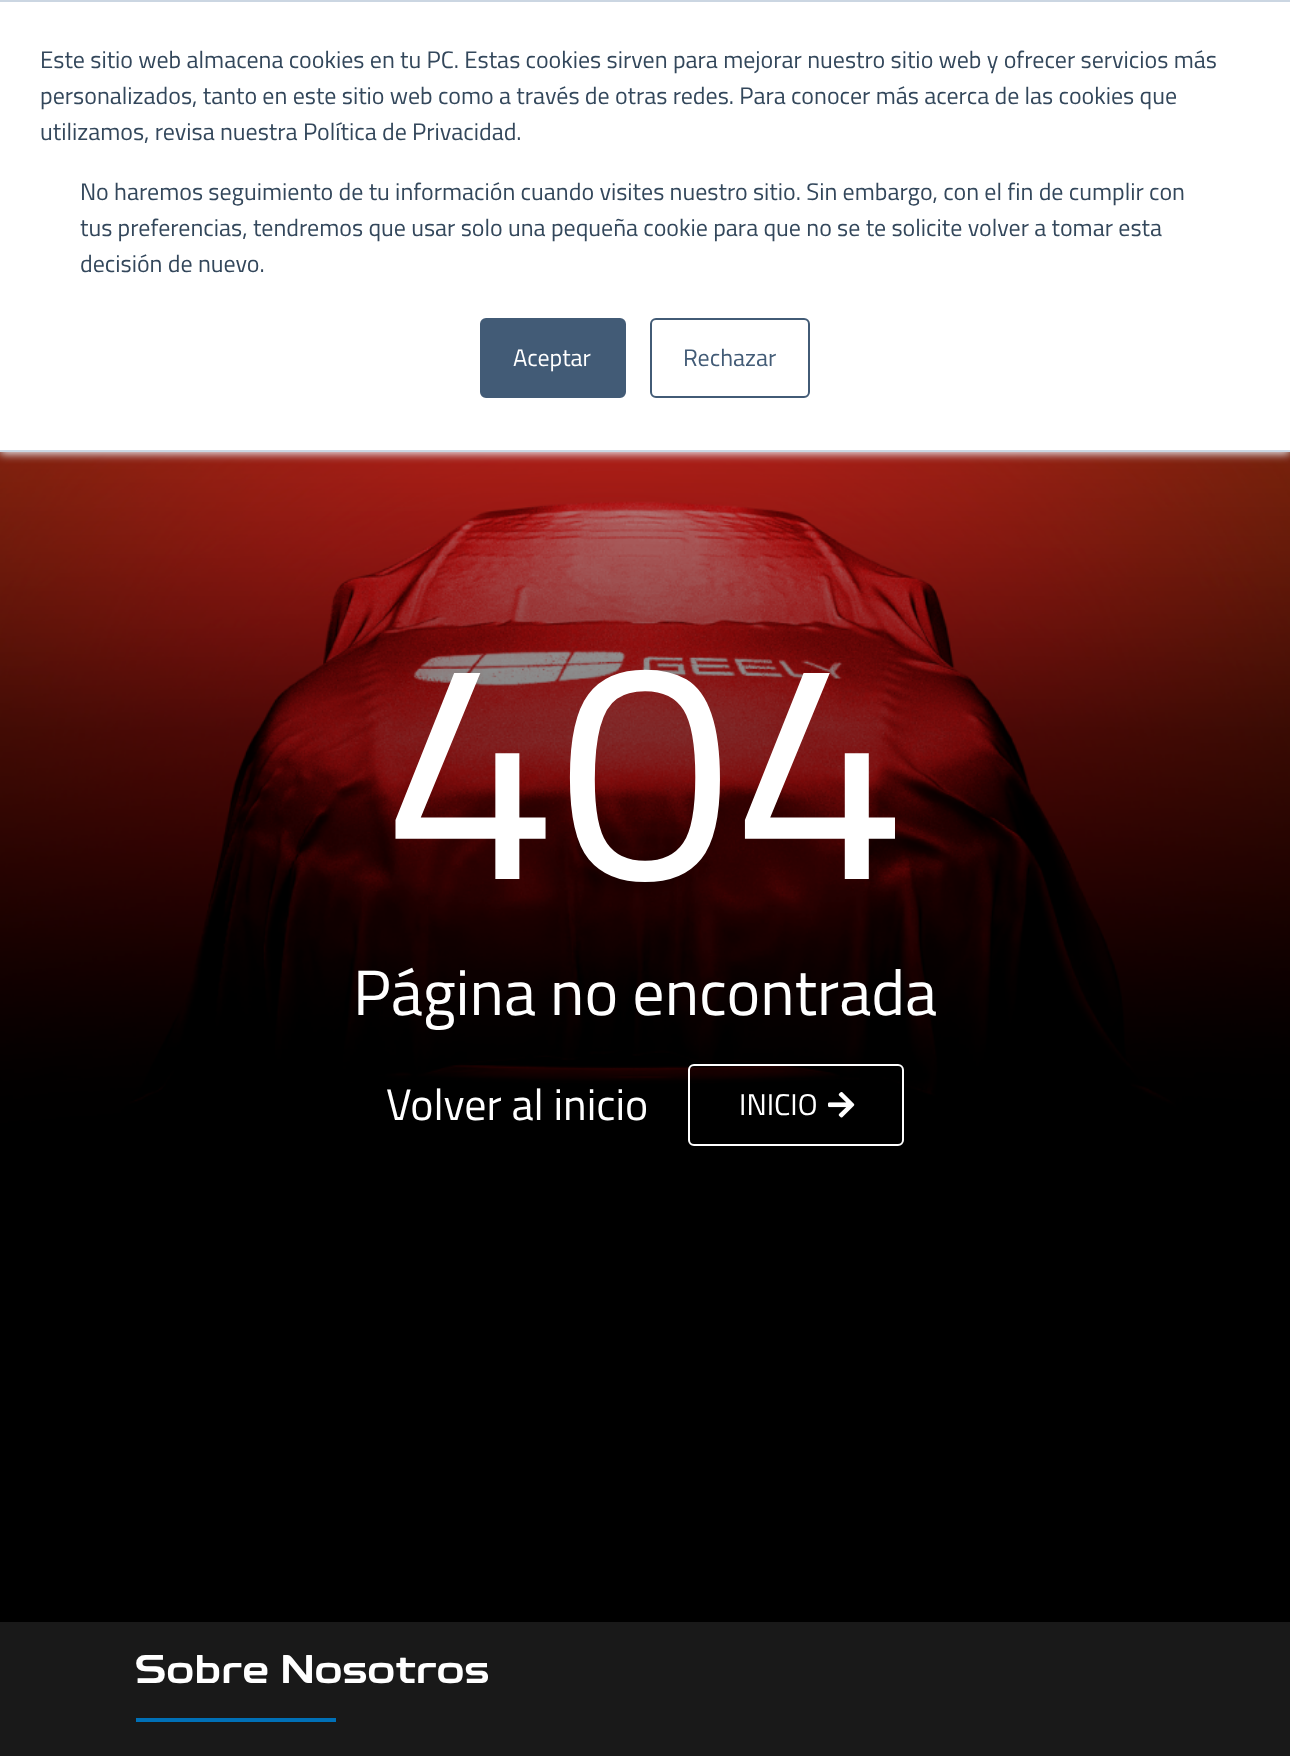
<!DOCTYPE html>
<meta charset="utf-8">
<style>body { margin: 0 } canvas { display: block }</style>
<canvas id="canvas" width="1290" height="1756"></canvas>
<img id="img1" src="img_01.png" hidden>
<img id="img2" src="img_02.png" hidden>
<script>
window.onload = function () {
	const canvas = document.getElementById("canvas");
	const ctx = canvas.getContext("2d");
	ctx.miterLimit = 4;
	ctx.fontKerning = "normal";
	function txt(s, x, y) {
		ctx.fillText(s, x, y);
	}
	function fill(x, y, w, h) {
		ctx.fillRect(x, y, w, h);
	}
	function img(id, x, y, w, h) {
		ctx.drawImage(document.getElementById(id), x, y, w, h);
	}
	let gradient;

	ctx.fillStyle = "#FFFFFF";
	fill(0, 0, 1290, 1756);
	img("img1", 0, 452, 1290, 1170);
	ctx.fillStyle = "#EAF0F6";
	ctx.filter = "blur(5px)";
	ctx.beginPath();
	ctx.rect(0, 2, 1290, 452);
	ctx.fill();
	ctx.filter = "none";
	ctx.fillStyle = "#FFFFFF";
	fill(0, 2, 1290, 448);
	ctx.fillStyle = "#CBD6E2";
	fill(0, 0, 1290, 2);
	fill(0, 450, 1290, 2);
	ctx.fillStyle = "#425B76";
	ctx.beginPath();
	ctx.roundRect(481, 319, 144, 78, 5);
	ctx.fill();
	ctx.strokeStyle = "#425B76";
	ctx.lineWidth = 2;
	ctx.stroke();
	ctx.beginPath();
	ctx.roundRect(651, 319, 158, 78, 5);
	ctx.stroke();
	ctx.beginPath();
	ctx.roundRect(689, 1065, 214, 80, 5);
	ctx.strokeStyle = "#FFFFFF";
	ctx.stroke();
	img("img2", 828, 1092, 27, 26);
	gradient = ctx.createLinearGradient(645, 1622, 645, 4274);
	gradient.addColorStop(0.7, "#191919");
	gradient.addColorStop(1, "#000000");
	ctx.fillStyle = gradient;
	fill(0, 1622, 1290, 134);
	ctx.fillStyle = "#0070B7";
	fill(136, 1718, 200, 4);
	ctx.font = "24px Titillium Web";
	ctx.fillStyle = "#33475B";
	txt("Este sitio web almacena cookies en tu PC. Estas cookies sirven para mejorar nuestro sitio web y ofrecer servicios más", 40, 68);
	txt("personalizados, tanto en este sitio web como a través de otras redes. Para conocer más acerca de las cookies que", 40, 104);
	txt("utilizamos, revisa nuestra Política de Privacidad.", 40, 140);
	txt("No haremos seguimiento de tu información cuando visites nuestro sitio. Sin embargo, con el fin de cumplir con", 80, 200);
	txt("tus preferencias, tendremos que usar solo una pequeña cookie para que no se te solicite volver a tomar esta", 80, 236);
	txt("decisión de nuevo.", 80, 272);
	ctx.fillStyle = "#FFFFFF";
	txt("Aceptar", 513, 366);
	ctx.fillStyle = "#425B76";
	txt("Rechazar", 683, 366);
	ctx.font = "312px Titillium Web";
	ctx.fillStyle = "#FFFFFF";
	txt("404", 383, 879);
	ctx.font = "64px Titillium Web";
	txt("Página no encontrada", 353, 1015);
	ctx.font = "44px Titillium Web";
	txt("Volver al inicio", 386, 1120);
	ctx.font = "30px Titillium Web";
	txt("INICIO", 739, 1115);
	ctx.letterSpacing = "1px";
	ctx.font = "bold 40px 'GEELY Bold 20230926'";
	txt("Sobre Nosotros", 135, 1683);
};
</script>
